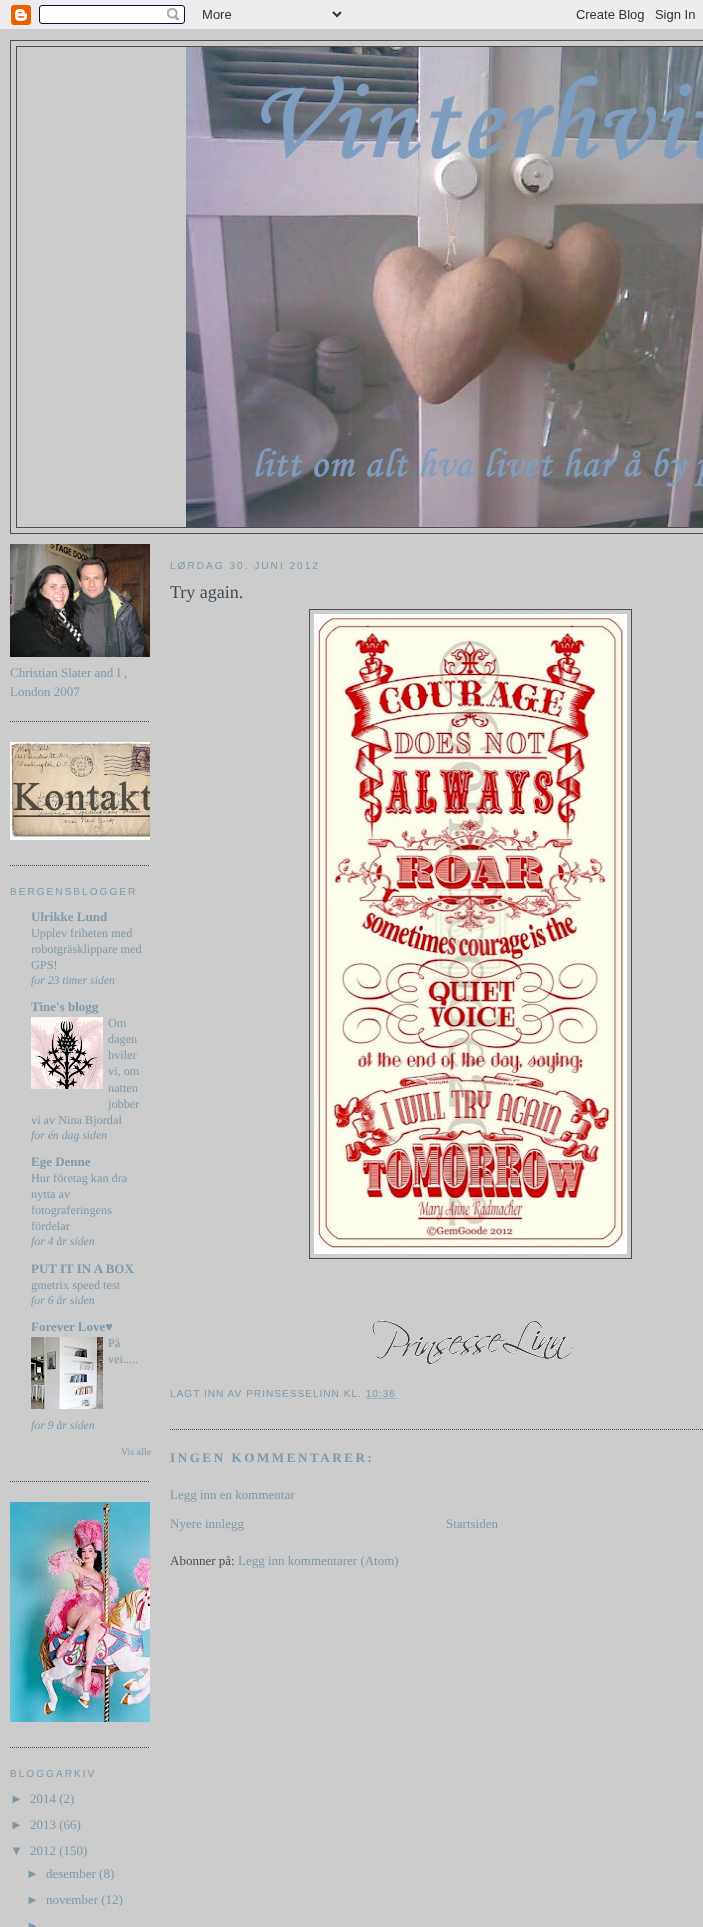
<!DOCTYPE html>
<meta charset="utf-8">
<style>body { margin: 0 } canvas { display: block }</style>
<canvas id="canvas" width="703" height="1927"></canvas>
<img id="img1" src="img_01.png" hidden>
<img id="img2" src="img_02.png" hidden>
<img id="img3" src="img_03.png" hidden>
<img id="img4" src="img_04.png" hidden>
<img id="img5" src="img_05.png" hidden>
<img id="img6" src="img_06.png" hidden>
<img id="img7" src="img_07.png" hidden>
<img id="img8" src="img_08.png" hidden>
<img id="img9" src="img_09.png" hidden>
<script>
window.onload = function () {
	const canvas = document.getElementById("canvas");
	const ctx = canvas.getContext("2d");
	ctx.miterLimit = 4;
	ctx.fontKerning = "normal";
	function txt(s, x, y) {
		ctx.fillText(s, x, y);
	}
	function fill(x, y, w, h) {
		ctx.fillRect(x, y, w, h);
	}
	function img(id, x, y, w, h) {
		ctx.drawImage(document.getElementById(id), x, y, w, h);
	}

	ctx.fillStyle = "#CCCCCC";
	fill(0, 0, 703, 1927);
	img("img1", 0, 0, 703, 29);
	ctx.strokeStyle = "#4C4C4C";
	ctx.strokeRect(10.5, 40.5, 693, 493);
	ctx.strokeRect(16.5, 46.5, 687, 481);
	img("img2", 186, 47, 517, 480);
	ctx.beginPath();
	ctx.moveTo(10, 721.5);
	ctx.lineTo(150, 721.5);
	ctx.setLineDash([1, 1]);
	ctx.stroke();
	img("img3", 10, 544, 140, 113);
	ctx.beginPath();
	ctx.moveTo(10, 865.5);
	ctx.lineTo(150, 865.5);
	ctx.stroke();
	img("img4", 10, 742, 140, 98);
	ctx.beginPath();
	ctx.moveTo(10, 1481.5);
	ctx.lineTo(150, 1481.5);
	ctx.stroke();
	img("img5", 31, 1017, 72, 72);
	img("img6", 31, 1337, 72, 72);
	ctx.beginPath();
	ctx.moveTo(10, 1747.5);
	ctx.lineTo(150, 1747.5);
	ctx.stroke();
	img("img7", 10, 1502, 140, 220);
	ctx.beginPath();
	ctx.moveTo(170, 1429.5);
	ctx.lineTo(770, 1429.5);
	ctx.stroke();
	ctx.setLineDash([]);
	ctx.strokeRect(309.5, 609.5, 322, 649);
	img("img8", 314, 614, 313, 640);
	img("img9", 372, 1320, 201, 44);
	ctx.beginPath();
	ctx.moveTo(366.5, 1398.5);
	ctx.lineTo(397, 1398.5);
	ctx.strokeStyle = "#7F99AA";
	ctx.setLineDash([1, 1]);
	ctx.stroke();
	ctx.font = "13px Liberation Serif";
	ctx.fillStyle = "#7F99AA";
	txt("Christian Slater and I ,", 10, 677);
	txt("London 2007", 10, 696);
	ctx.letterSpacing = "2px";
	ctx.font = "10.1px Liberation Sans";
	txt("BERGENSBLOGGER", 10, 895);
	ctx.letterSpacing = "0px";
	ctx.font = "bold 13px Liberation Serif";
	txt("Ulrikke Lund", 31, 921);
	ctx.font = "12.25px Liberation Serif";
	txt("Upplev friheten med", 31, 937);
	txt("robotgräsklippare med", 31, 953);
	txt("GPS!", 31, 969);
	ctx.font = "italic 11.75px Liberation Serif";
	txt("for 23 timer siden", 31, 984);
	ctx.font = "bold 13px Liberation Serif";
	txt("Tine's blogg", 31, 1011);
	ctx.font = "12.25px Liberation Serif";
	txt("Om", 108, 1027);
	txt("dagen", 108, 1043);
	txt("hviler", 108, 1059);
	txt("vi, om", 108, 1075);
	txt("natten", 108, 1092);
	txt("jobber", 108, 1108);
	txt("vi av Nina Bjordal", 31, 1124);
	ctx.font = "italic 11.75px Liberation Serif";
	txt("for én dag siden", 31, 1139);
	ctx.font = "bold 13px Liberation Serif";
	txt("Ege Denne", 31, 1166);
	ctx.font = "12.25px Liberation Serif";
	txt("Hur företag kan dra", 31, 1182);
	txt("nytta av", 31, 1198);
	txt("fotograferingens", 31, 1214);
	txt("fördelar", 31, 1230);
	ctx.font = "italic 11.75px Liberation Serif";
	txt("for 4 år siden", 31, 1245);
	ctx.font = "bold 13px Liberation Serif";
	txt("PUT IT IN A BOX", 31, 1273);
	ctx.font = "12.25px Liberation Serif";
	txt("gmetrix speed test", 31, 1289);
	ctx.font = "italic 11.75px Liberation Serif";
	txt("for 6 år siden", 31, 1304);
	ctx.font = "bold 13px Liberation Serif";
	txt("Forever Love♥", 31, 1331);
	ctx.font = "12.25px Liberation Serif";
	txt("På", 108, 1347);
	txt("vei.....", 108, 1363);
	ctx.font = "italic 11.75px Liberation Serif";
	txt("for 9 år siden", 31, 1429);
	ctx.font = "10px Liberation Serif";
	txt("Vis alle", 121, 1455);
	ctx.letterSpacing = "2px";
	ctx.font = "10.1px Liberation Sans";
	txt("BLOGGARKIV", 10, 1777);
	ctx.letterSpacing = "0px";
	ctx.font = "13px Liberation Sans";
	txt("►", 10, 1803);
	ctx.font = "13px Liberation Serif";
	txt("2014 (2)", 30, 1803);
	ctx.font = "13px Liberation Sans";
	txt("►", 10, 1829);
	ctx.font = "13px Liberation Serif";
	txt("2013 (66)", 30, 1829);
	ctx.font = "13px Liberation Sans";
	txt("▼", 10, 1855);
	ctx.font = "13px Liberation Serif";
	txt("2012 (150)", 30, 1855);
	ctx.font = "13px Liberation Sans";
	txt("►", 26, 1878);
	ctx.font = "13px Liberation Serif";
	txt("desember (8)", 46, 1878);
	ctx.font = "13px Liberation Sans";
	txt("►", 26, 1904);
	ctx.font = "13px Liberation Serif";
	txt("november (12)", 46, 1904);
	ctx.font = "13px Liberation Sans";
	txt("►", 26, 1930);
	ctx.letterSpacing = "2px";
	ctx.font = "10.1px Liberation Sans";
	txt("LØRDAG 30. JUNI 2012", 170, 569);
	ctx.letterSpacing = "0px";
	ctx.font = "18px Liberation Serif";
	ctx.fillStyle = "#3F4C55";
	txt("Try again.", 170, 598);
	ctx.letterSpacing = "1px";
	ctx.font = "10.1px Liberation Sans";
	ctx.fillStyle = "#7F99AA";
	txt("LAGT INN AV PRINSESSELINN KL. 10:36", 170, 1397);
	ctx.letterSpacing = "2.6px";
	ctx.font = "bold 13px Liberation Serif";
	txt("INGEN KOMMENTARER:", 170, 1462);
	ctx.letterSpacing = "0px";
	ctx.font = "13px Liberation Serif";
	txt("Legg inn en kommentar", 170, 1499);
	txt("Nyere innlegg", 170, 1528);
	txt("Startsiden", 446, 1528);
	ctx.fillStyle = "#4C4C4C";
	txt("Abonner på:", 170, 1565);
	ctx.fillStyle = "#7F99AA";
	txt("Legg inn kommentarer (Atom)", 238, 1565);
};
</script>
